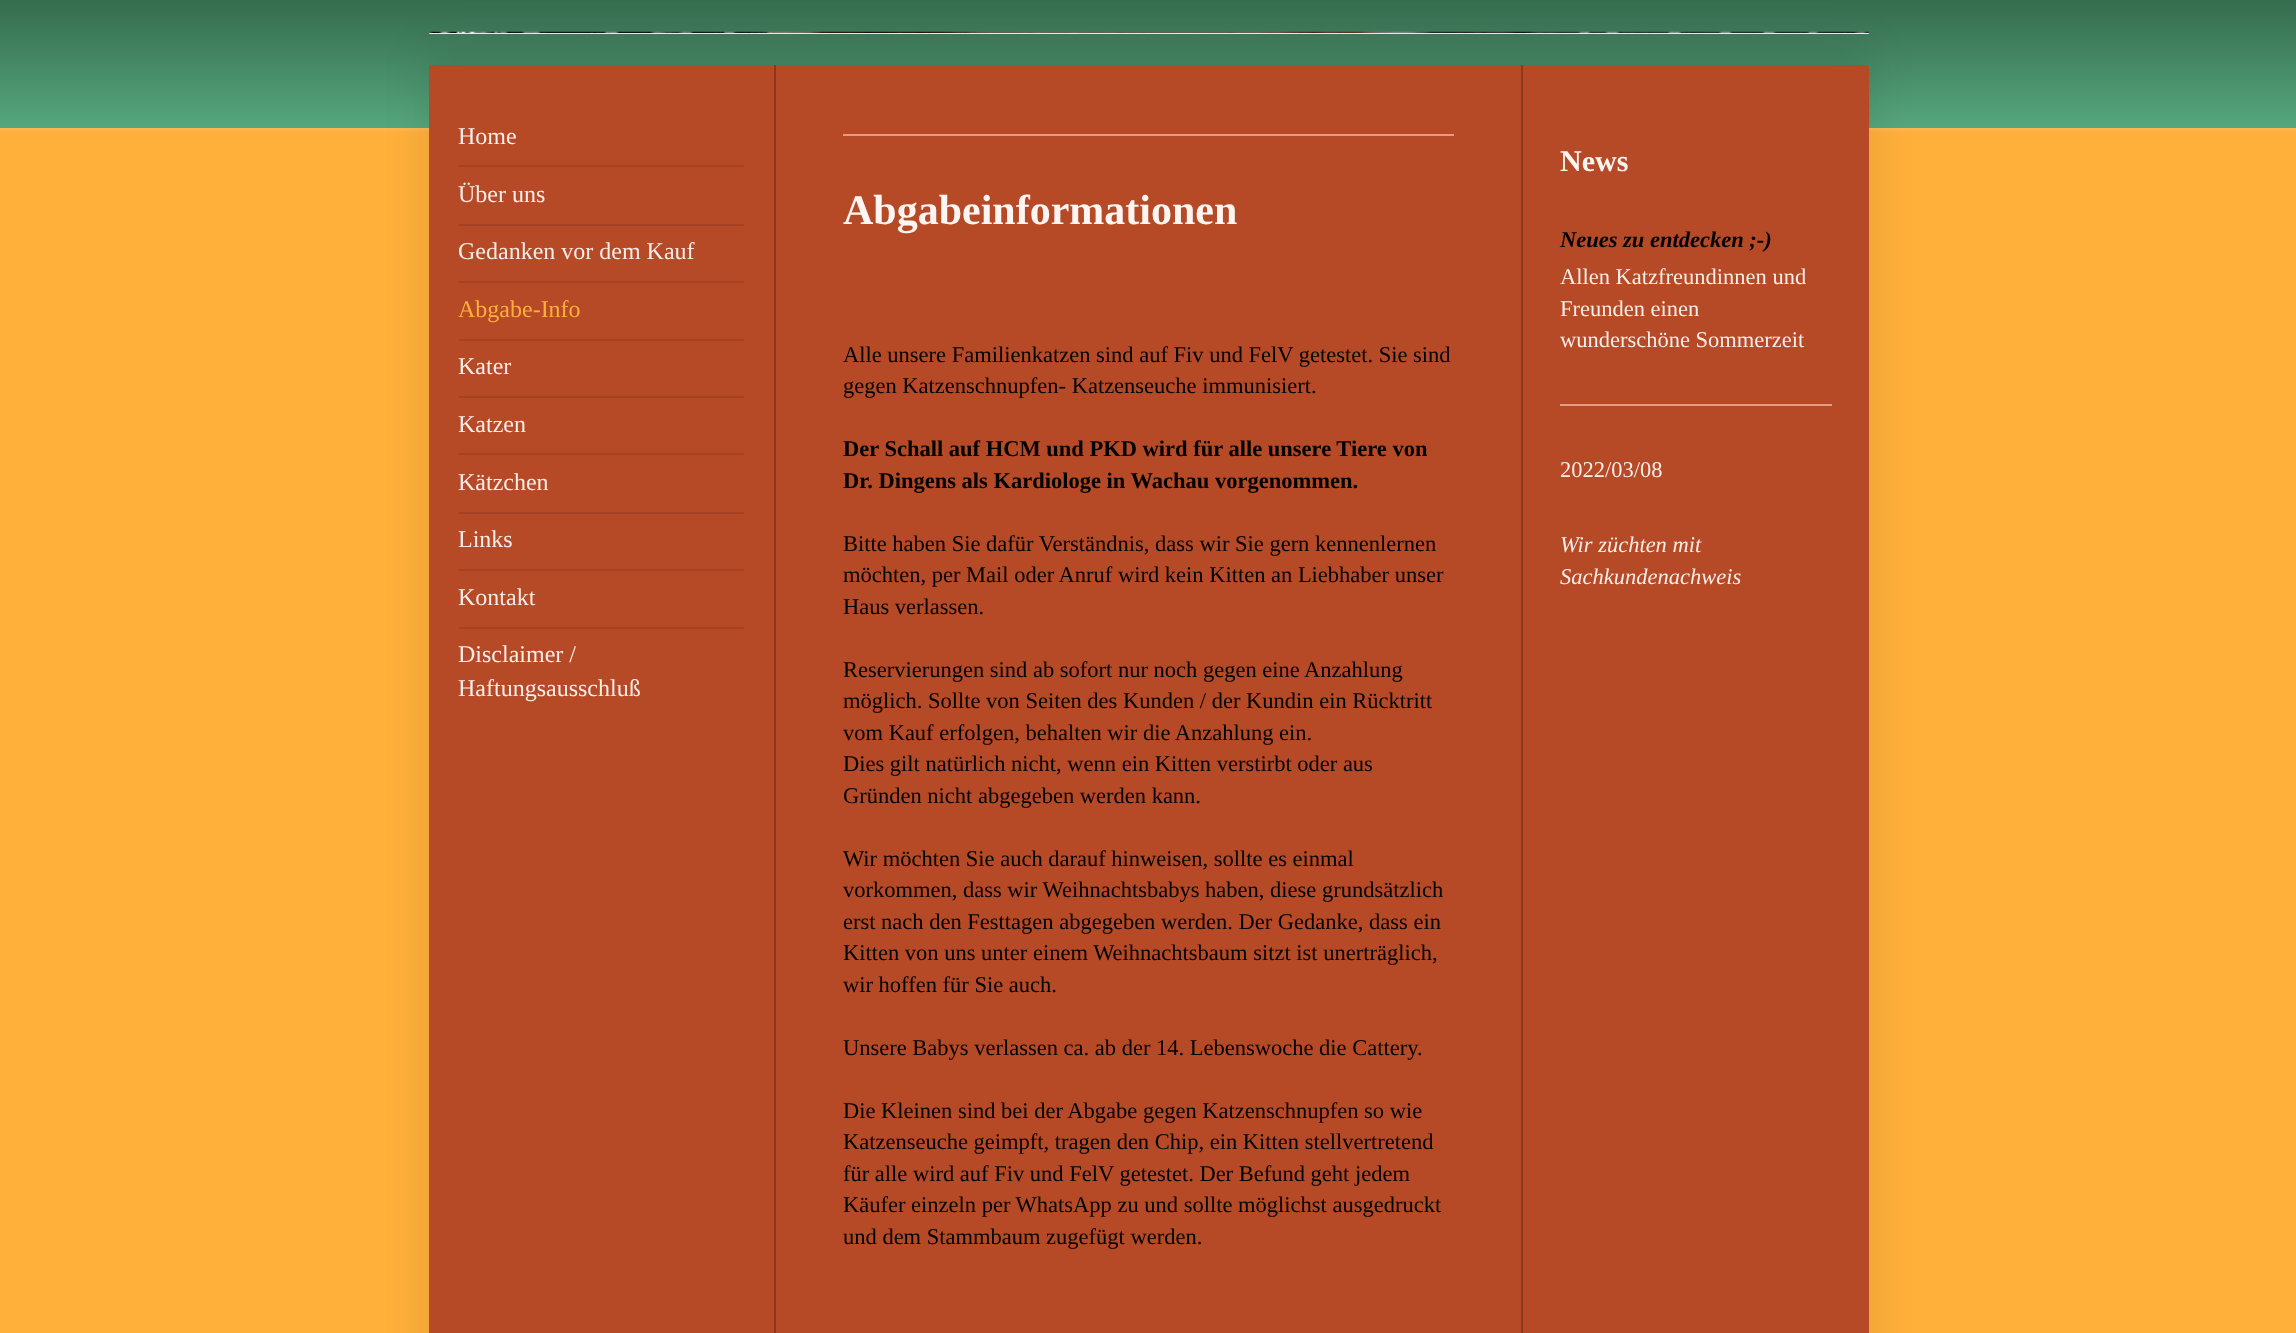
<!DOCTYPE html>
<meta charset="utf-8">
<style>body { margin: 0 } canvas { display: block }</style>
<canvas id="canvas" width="2296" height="1333"></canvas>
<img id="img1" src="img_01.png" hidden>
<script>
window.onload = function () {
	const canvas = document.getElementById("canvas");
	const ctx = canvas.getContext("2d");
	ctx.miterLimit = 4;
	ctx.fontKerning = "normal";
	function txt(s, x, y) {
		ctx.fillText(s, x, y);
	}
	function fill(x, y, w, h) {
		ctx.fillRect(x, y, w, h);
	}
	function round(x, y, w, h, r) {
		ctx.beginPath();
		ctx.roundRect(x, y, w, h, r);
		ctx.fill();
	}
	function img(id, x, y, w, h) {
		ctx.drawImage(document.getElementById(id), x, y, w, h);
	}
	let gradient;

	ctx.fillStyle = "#FFB03B";
	fill(0, 0, 2296, 1333);
	ctx.fillStyle = "rgba(255, 255, 255, 0.1)";
	ctx.filter = "blur(1px)";
	ctx.beginPath();
	ctx.rect(0, 3, 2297, 128);
	ctx.fill();
	ctx.filter = "none";
	gradient = ctx.createLinearGradient(0, 128, 0, 0);
	gradient.addColorStop(0, "#56A77D");
	gradient.addColorStop(1, "#366B4F");
	ctx.fillStyle = gradient;
	fill(0, 0, 2296, 128);
	ctx.fillStyle = "#EEEEEE";
	round(429, 32, 1440, 2, 1);
	img("img1", 429, 31, 1440, 2);
	ctx.fillStyle = "rgba(0, 0, 0, 0.1)";
	ctx.filter = "blur(22.5px)";
	ctx.beginPath();
	ctx.roundRect(429, 50, 1440, 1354, 3);
	ctx.fill();
	ctx.filter = "none";
	ctx.fillStyle = "#B64926";
	round(429, 65, 1440, 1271, 3);
	ctx.fillStyle = "#A44222";
	fill(459, 165, 285, 2);
	fill(459, 224, 285, 2);
	fill(459, 281, 285, 2);
	fill(459, 339, 285, 2);
	fill(459, 396, 285, 2);
	fill(459, 453, 285, 2);
	fill(459, 512, 285, 2);
	fill(459, 569, 285, 2);
	fill(459, 627, 285, 2);
	ctx.fillStyle = "#8C381D";
	fill(1521, 65, 2, 1268);
	fill(774, 65, 2, 1268);
	ctx.fillStyle = "#E29A83";
	fill(843, 134, 611, 2);
	fill(1560, 404, 272, 2);
	ctx.font = "24px Liberation Serif";
	ctx.fillStyle = "#F8EDE9";
	txt("Home", 458, 144);
	txt("Über uns", 458, 202);
	txt("Gedanken vor dem Kauf", 458, 259);
	ctx.fillStyle = "#FFB03B";
	txt("Abgabe-Info", 458, 317);
	ctx.fillStyle = "#F8EDE9";
	txt("Kater", 458, 374);
	txt("Katzen", 458, 432);
	txt("Kätzchen", 458, 490);
	txt("Links", 458, 547);
	txt("Kontakt", 458, 605);
	txt("Disclaimer /", 458, 662);
	txt("Haftungsausschluß", 458, 696);
	ctx.font = "bold 42px Liberation Serif";
	ctx.fillStyle = "#FCF5F2";
	txt("Abgabeinformationen", 843, 224);
	ctx.font = "22.5px Liberation Serif";
	ctx.fillStyle = "#000000";
	txt("Alle unsere Familienkatzen sind auf Fiv und FelV getestet. Sie sind", 843, 362);
	txt("gegen Katzenschnupfen- Katzenseuche immunisiert.", 843, 393);
	ctx.font = "bold 22.5px Liberation Serif";
	txt("Der Schall auf HCM und PKD wird für alle unsere Tiere von", 843, 456);
	txt("Dr. Dingens als Kardiologe in Wachau vorgenommen.", 843, 488);
	ctx.font = "22.5px Liberation Serif";
	txt("Bitte haben Sie dafür Verständnis, dass wir Sie gern kennenlernen", 843, 551);
	txt("möchten, per Mail oder Anruf wird kein Kitten an Liebhaber unser", 843, 582);
	txt("Haus verlassen.", 843, 614);
	txt("Reservierungen sind ab sofort nur noch gegen eine Anzahlung", 843, 677);
	txt("möglich. Sollte von Seiten des Kunden / der Kundin ein Rücktritt", 843, 708);
	txt("vom Kauf erfolgen, behalten wir die Anzahlung ein.", 843, 740);
	txt("Dies gilt natürlich nicht, wenn ein Kitten verstirbt oder aus", 843, 771);
	txt("Gründen nicht abgegeben werden kann.", 843, 803);
	txt("Wir möchten Sie auch darauf hinweisen, sollte es einmal", 843, 866);
	txt("vorkommen, dass wir Weihnachtsbabys haben, diese grundsätzlich", 843, 897);
	txt("erst nach den Festtagen abgegeben werden. Der Gedanke, dass ein", 843, 929);
	txt("Kitten von uns unter einem Weihnachtsbaum sitzt ist unerträglich,", 843, 960);
	txt("wir hoffen für Sie auch.", 843, 992);
	txt("Unsere Babys verlassen ca. ab der 14. Lebenswoche die Cattery.", 843, 1055);
	txt("Die Kleinen sind bei der Abgabe gegen Katzenschnupfen so wie", 843, 1118);
	txt("Katzenseuche geimpft, tragen den Chip, ein Kitten stellvertretend", 843, 1149);
	txt("für alle wird auf Fiv und FelV getestet. Der Befund geht jedem", 843, 1181);
	txt("Käufer einzeln per WhatsApp zu und sollte möglichst ausgedruckt", 843, 1212);
	txt("und dem Stammbaum zugefügt werden.", 843, 1244);
	ctx.font = "bold 30px Liberation Serif";
	ctx.fillStyle = "#FCF5F2";
	txt("News", 1560, 171);
	ctx.font = "italic bold 22.5px Liberation Serif";
	ctx.fillStyle = "#000000";
	txt("Neues zu entdecken ;-)", 1560, 247);
	ctx.font = "22.5px Liberation Serif";
	ctx.fillStyle = "#F8EDE9";
	txt("Allen Katzfreundinnen und", 1560, 284);
	txt("Freunden einen", 1560, 316);
	txt("wunderschöne Sommerzeit", 1560, 347);
	txt("2022/03/08", 1560, 477);
	ctx.font = "italic 22.5px Liberation Serif";
	txt("Wir züchten mit", 1560, 552);
	txt("Sachkundenachweis", 1560, 584);
};
</script>
